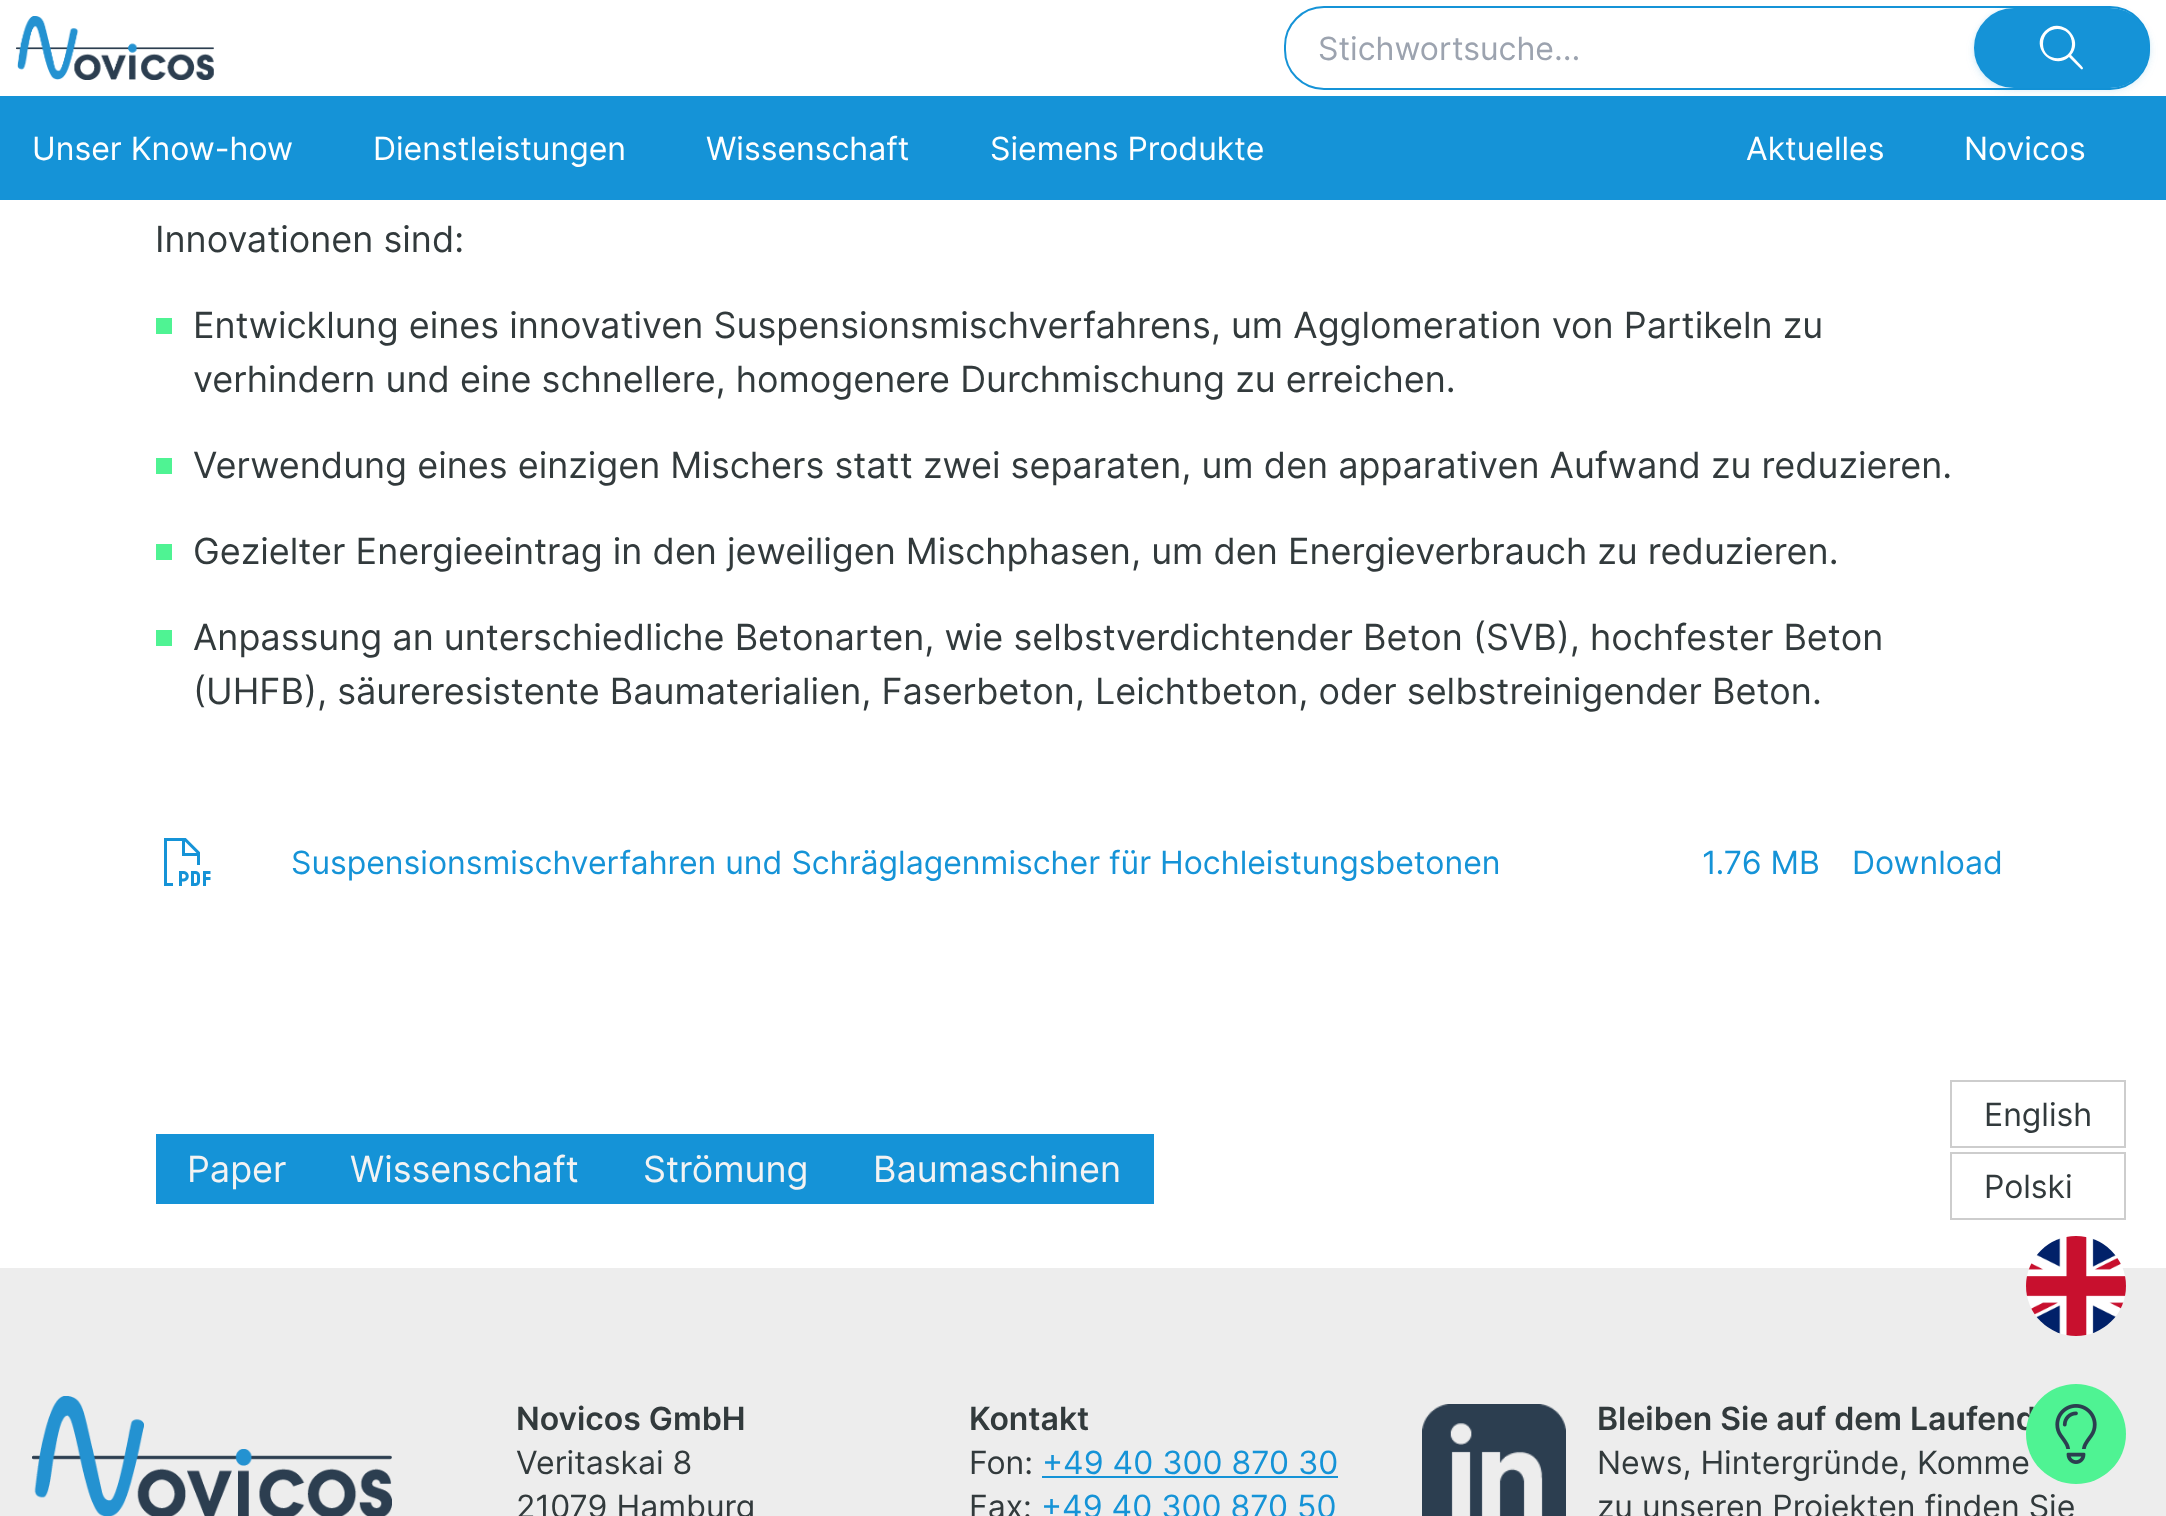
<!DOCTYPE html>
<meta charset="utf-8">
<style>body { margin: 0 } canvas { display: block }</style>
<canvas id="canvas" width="2166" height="1516"></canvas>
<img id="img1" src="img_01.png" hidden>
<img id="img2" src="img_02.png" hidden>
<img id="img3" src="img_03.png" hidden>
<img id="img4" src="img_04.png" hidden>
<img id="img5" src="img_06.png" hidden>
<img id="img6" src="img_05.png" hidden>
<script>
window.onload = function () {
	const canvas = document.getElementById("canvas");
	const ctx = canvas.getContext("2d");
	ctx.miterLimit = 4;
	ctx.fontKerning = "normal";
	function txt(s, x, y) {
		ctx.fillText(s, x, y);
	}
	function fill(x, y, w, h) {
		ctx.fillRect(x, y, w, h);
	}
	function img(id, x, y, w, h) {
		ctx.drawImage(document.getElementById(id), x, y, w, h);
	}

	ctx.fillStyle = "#EDEDED";
	fill(0, 0, 2166, 1516);
	ctx.fillStyle = "#FFFFFF";
	fill(0, 0, 2166, 96);
	img("img1", 16, 16, 198, 64);
	ctx.beginPath();
	ctx.roundRect(1285, 7, 864, 82, 39);
	ctx.strokeStyle = "#1593D7";
	ctx.lineWidth = 2;
	ctx.stroke();
	ctx.fillStyle = "#1593D7";
	fill(0, 96, 2166, 104);
	ctx.fillStyle = "rgba(21, 147, 215, 0.07)";
	ctx.filter = "blur(5px)";
	ctx.beginPath();
	ctx.roundRect(1974, 12, 176, 80, 40);
	ctx.fill();
	ctx.filter = "none";
	ctx.filter = "blur(3px)";
	ctx.beginPath();
	ctx.roundRect(1974, 10, 176, 80, 40);
	ctx.fill();
	ctx.filter = "none";
	ctx.filter = "blur(2px)";
	ctx.beginPath();
	ctx.roundRect(1974, 8, 176, 80, 40);
	ctx.fill();
	ctx.filter = "none";
	ctx.filter = "blur(1px)";
	ctx.beginPath();
	ctx.roundRect(1974, 8, 176, 80, 40);
	ctx.fill();
	ctx.filter = "none";
	ctx.fillStyle = "#1593D7";
	ctx.beginPath();
	ctx.roundRect(1975, 9, 174, 78, 39);
	ctx.fill();
	ctx.stroke();
	ctx.fillStyle = "#FFFFFF";
	ctx.beginPath();
	ctx.moveTo(2072, 44);
	ctx.bezierCurveTo(2072, 24, 2043, 24, 2043, 44);
	ctx.bezierCurveTo(2043, 63, 2072, 63, 2072, 44);
	ctx.closePath();
	ctx.moveTo(2069, 57);
	ctx.bezierCurveTo(2053, 71, 2029, 47, 2045, 31);
	ctx.bezierCurveTo(2061, 15, 2085, 39, 2071, 55);
	ctx.bezierCurveTo(2073, 57, 2083, 67, 2083, 68);
	ctx.bezierCurveTo(2083, 69, 2082, 70, 2081, 69);
	ctx.closePath();
	ctx.fill();
	fill(0, 200, 2166, 1068);
	ctx.fillStyle = "#4FF393";
	fill(156, 318, 16, 16);
	fill(156, 458, 16, 16);
	fill(156, 544, 16, 16);
	fill(156, 630, 16, 16);
	img("img2", 164, 838, 47, 48);
	ctx.fillStyle = "#1593D7";
	fill(156, 1134, 998, 70);
	img("img3", 32, 1396, 360, 120);
	fill(1042, 1476, 296, 2);
	img("img4", 1422, 1404, 144, 112);
	ctx.strokeStyle = "#CDCDCD";
	ctx.strokeRect(1951, 1081, 174, 66);
	ctx.strokeRect(1951, 1153, 174, 66);
	img("img5", 2026, 1236, 100, 100);
	ctx.font = "32px Inter";
	ctx.fillStyle = "#9CA3AF";
	txt("Stichwortsuche...", 1318, 60);
	ctx.fillStyle = "#FFFFFF";
	txt("Unser Know-how", 32, 160);
	txt("Dienstleistungen", 373, 160);
	txt("Wissenschaft", 706, 160);
	txt("Siemens Produkte", 990, 160);
	txt("Aktuelles", 1746, 160);
	txt("Novicos", 1964, 160);
	ctx.font = "36px Inter";
	ctx.fillStyle = "#323A3C";
	txt("Innovationen sind:", 155, 252);
	txt("Entwicklung eines innovativen Suspensionsmischverfahrens, um Agglomeration von Partikeln zu", 193, 338);
	txt("verhindern und eine schnellere, homogenere Durchmischung zu erreichen.", 193, 392);
	txt("Verwendung eines einzigen Mischers statt zwei separaten, um den apparativen Aufwand zu reduzieren.", 193, 478);
	txt("Gezielter Energieeintrag in den jeweiligen Mischphasen, um den Energieverbrauch zu reduzieren.", 193, 564);
	txt("Anpassung an unterschiedliche Betonarten, wie selbstverdichtender Beton (SVB), hochfester Beton", 193, 650);
	txt("(UHFB), säureresistente Baumaterialien, Faserbeton, Leichtbeton, oder selbstreinigender Beton.", 193, 704);
	ctx.font = "32px Inter";
	ctx.fillStyle = "#1593D7";
	txt("Suspensionsmischverfahren und Schräglagenmischer für Hochleistungsbetonen", 291, 874);
	txt("1.76 MB", 1702, 874);
	txt("Download", 1852, 874);
	ctx.font = "36px Inter";
	ctx.fillStyle = "#F3F3F3";
	txt("Paper", 187, 1182);
	txt("Wissenschaft", 350, 1182);
	txt("Strömung", 643, 1182);
	txt("Baumaschinen", 873, 1182);
	ctx.font = "600 32px Inter";
	ctx.fillStyle = "#323A3C";
	txt("Novicos GmbH", 516, 1430);
	ctx.font = "32px Inter";
	txt("Veritaskai 8", 516, 1474);
	txt("21079 Hamburg", 516, 1518);
	ctx.font = "600 32px Inter";
	txt("Kontakt", 969, 1430);
	ctx.font = "32px Inter";
	txt("Fon:", 969, 1474);
	ctx.fillStyle = "#1593D7";
	txt("+49 40 300 870 30", 1042, 1474);
	ctx.fillStyle = "#323A3C";
	txt("Fax:", 969, 1518);
	ctx.fillStyle = "#1593D7";
	txt("+49 40 300 870 50", 1041, 1518);
	ctx.font = "600 32px Inter";
	ctx.fillStyle = "#323A3C";
	txt("Bleiben Sie auf dem Laufend", 1597, 1430);
	ctx.font = "32px Inter";
	txt("News, Hintergründe, Komme", 1597, 1474);
	txt("zu unseren Projekten finden Sie", 1597, 1518);
	ctx.fillStyle = "#4FF393";
	ctx.beginPath();
	ctx.arc(2076, 1434, 50, 0, Math.PI * 2);
	ctx.fill();
	img("img6", 2055, 1404, 42, 60);
	ctx.fillStyle = "#323A3C";
	txt("English", 1984, 1126);
	txt("Polski", 1984, 1198);
};
</script>
